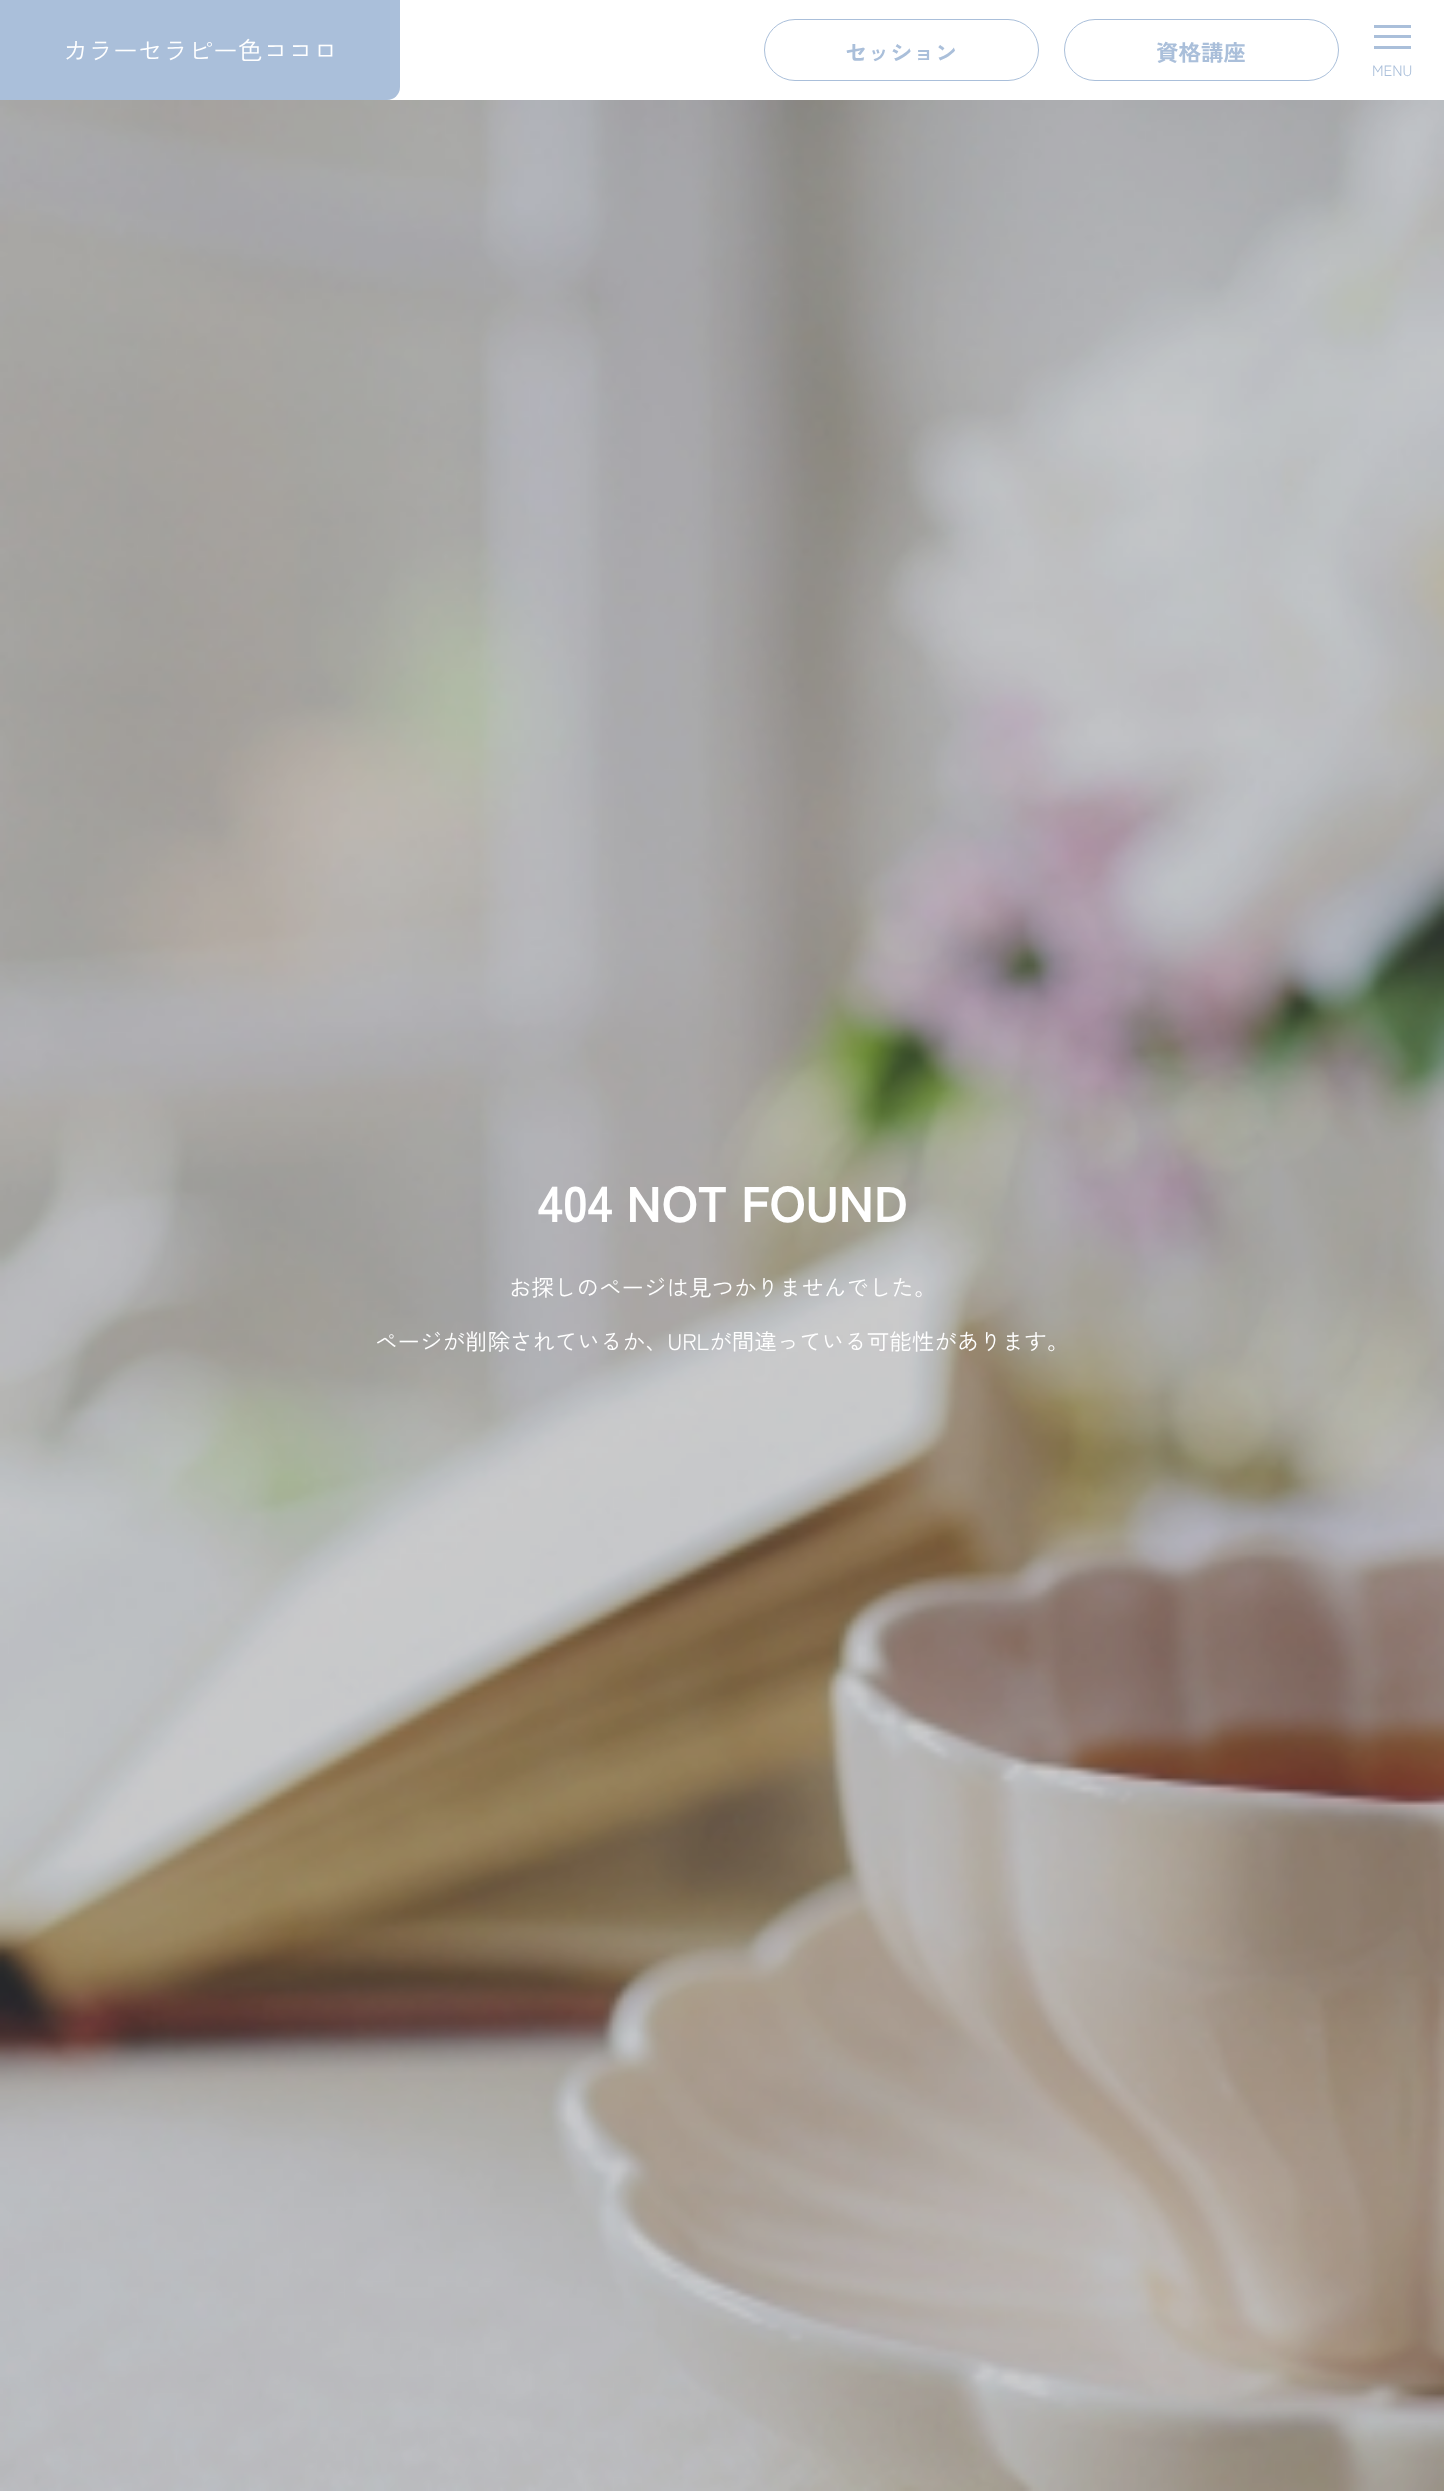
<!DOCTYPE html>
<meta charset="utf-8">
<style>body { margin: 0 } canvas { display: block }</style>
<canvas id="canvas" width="1444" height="2491"></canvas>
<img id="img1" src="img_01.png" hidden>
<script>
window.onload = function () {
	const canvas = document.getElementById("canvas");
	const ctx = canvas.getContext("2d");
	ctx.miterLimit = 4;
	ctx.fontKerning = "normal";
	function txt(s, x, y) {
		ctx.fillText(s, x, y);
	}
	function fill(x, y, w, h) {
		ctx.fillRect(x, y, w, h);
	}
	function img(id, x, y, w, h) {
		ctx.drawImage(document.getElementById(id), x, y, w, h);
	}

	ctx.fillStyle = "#FFFFFF";
	fill(0, 0, 1444, 2491);
	ctx.fillStyle = "#AABFDA";
	ctx.beginPath();
	ctx.roundRect(0, 0, 400, 100, [0, 0, 13, 0]);
	ctx.fill();
	ctx.beginPath();
	ctx.roundRect(764.5, 19.5, 274, 61, 30.5);
	ctx.strokeStyle = "#AABFDA";
	ctx.stroke();
	ctx.beginPath();
	ctx.roundRect(1064.5, 19.5, 274, 61, 30.5);
	ctx.stroke();
	fill(1374, 25, 37, 3);
	fill(1374, 35, 37, 3);
	fill(1374, 46, 37, 3);
	img("img1", 0, 100, 1444, 2391);
	ctx.font = "25px Zen Kaku Gothic New";
	ctx.fillStyle = "#FFFFFF";
	txt("カラーセラピー色ココロ", 63, 60);
	ctx.font = "bold 22.5px Zen Kaku Gothic New";
	ctx.fillStyle = "#AABFDA";
	txt("セッション", 845, 61);
	txt("資格講座", 1156, 61);
	ctx.font = "15px Zen Kaku Gothic New";
	txt("MENU", 1372, 76);
	ctx.font = "bold 50px Zen Kaku Gothic New";
	ctx.fillStyle = "#FFFFFF";
	txt("404 NOT FOUND", 538, 1222);
	ctx.font = "22.5px Zen Kaku Gothic New";
	txt("お探しのページは見つかりませんでした。", 509, 1296);
	txt("ページが削除されているか、URLが間違っている可能性があります。", 375, 1350);
};
</script>
